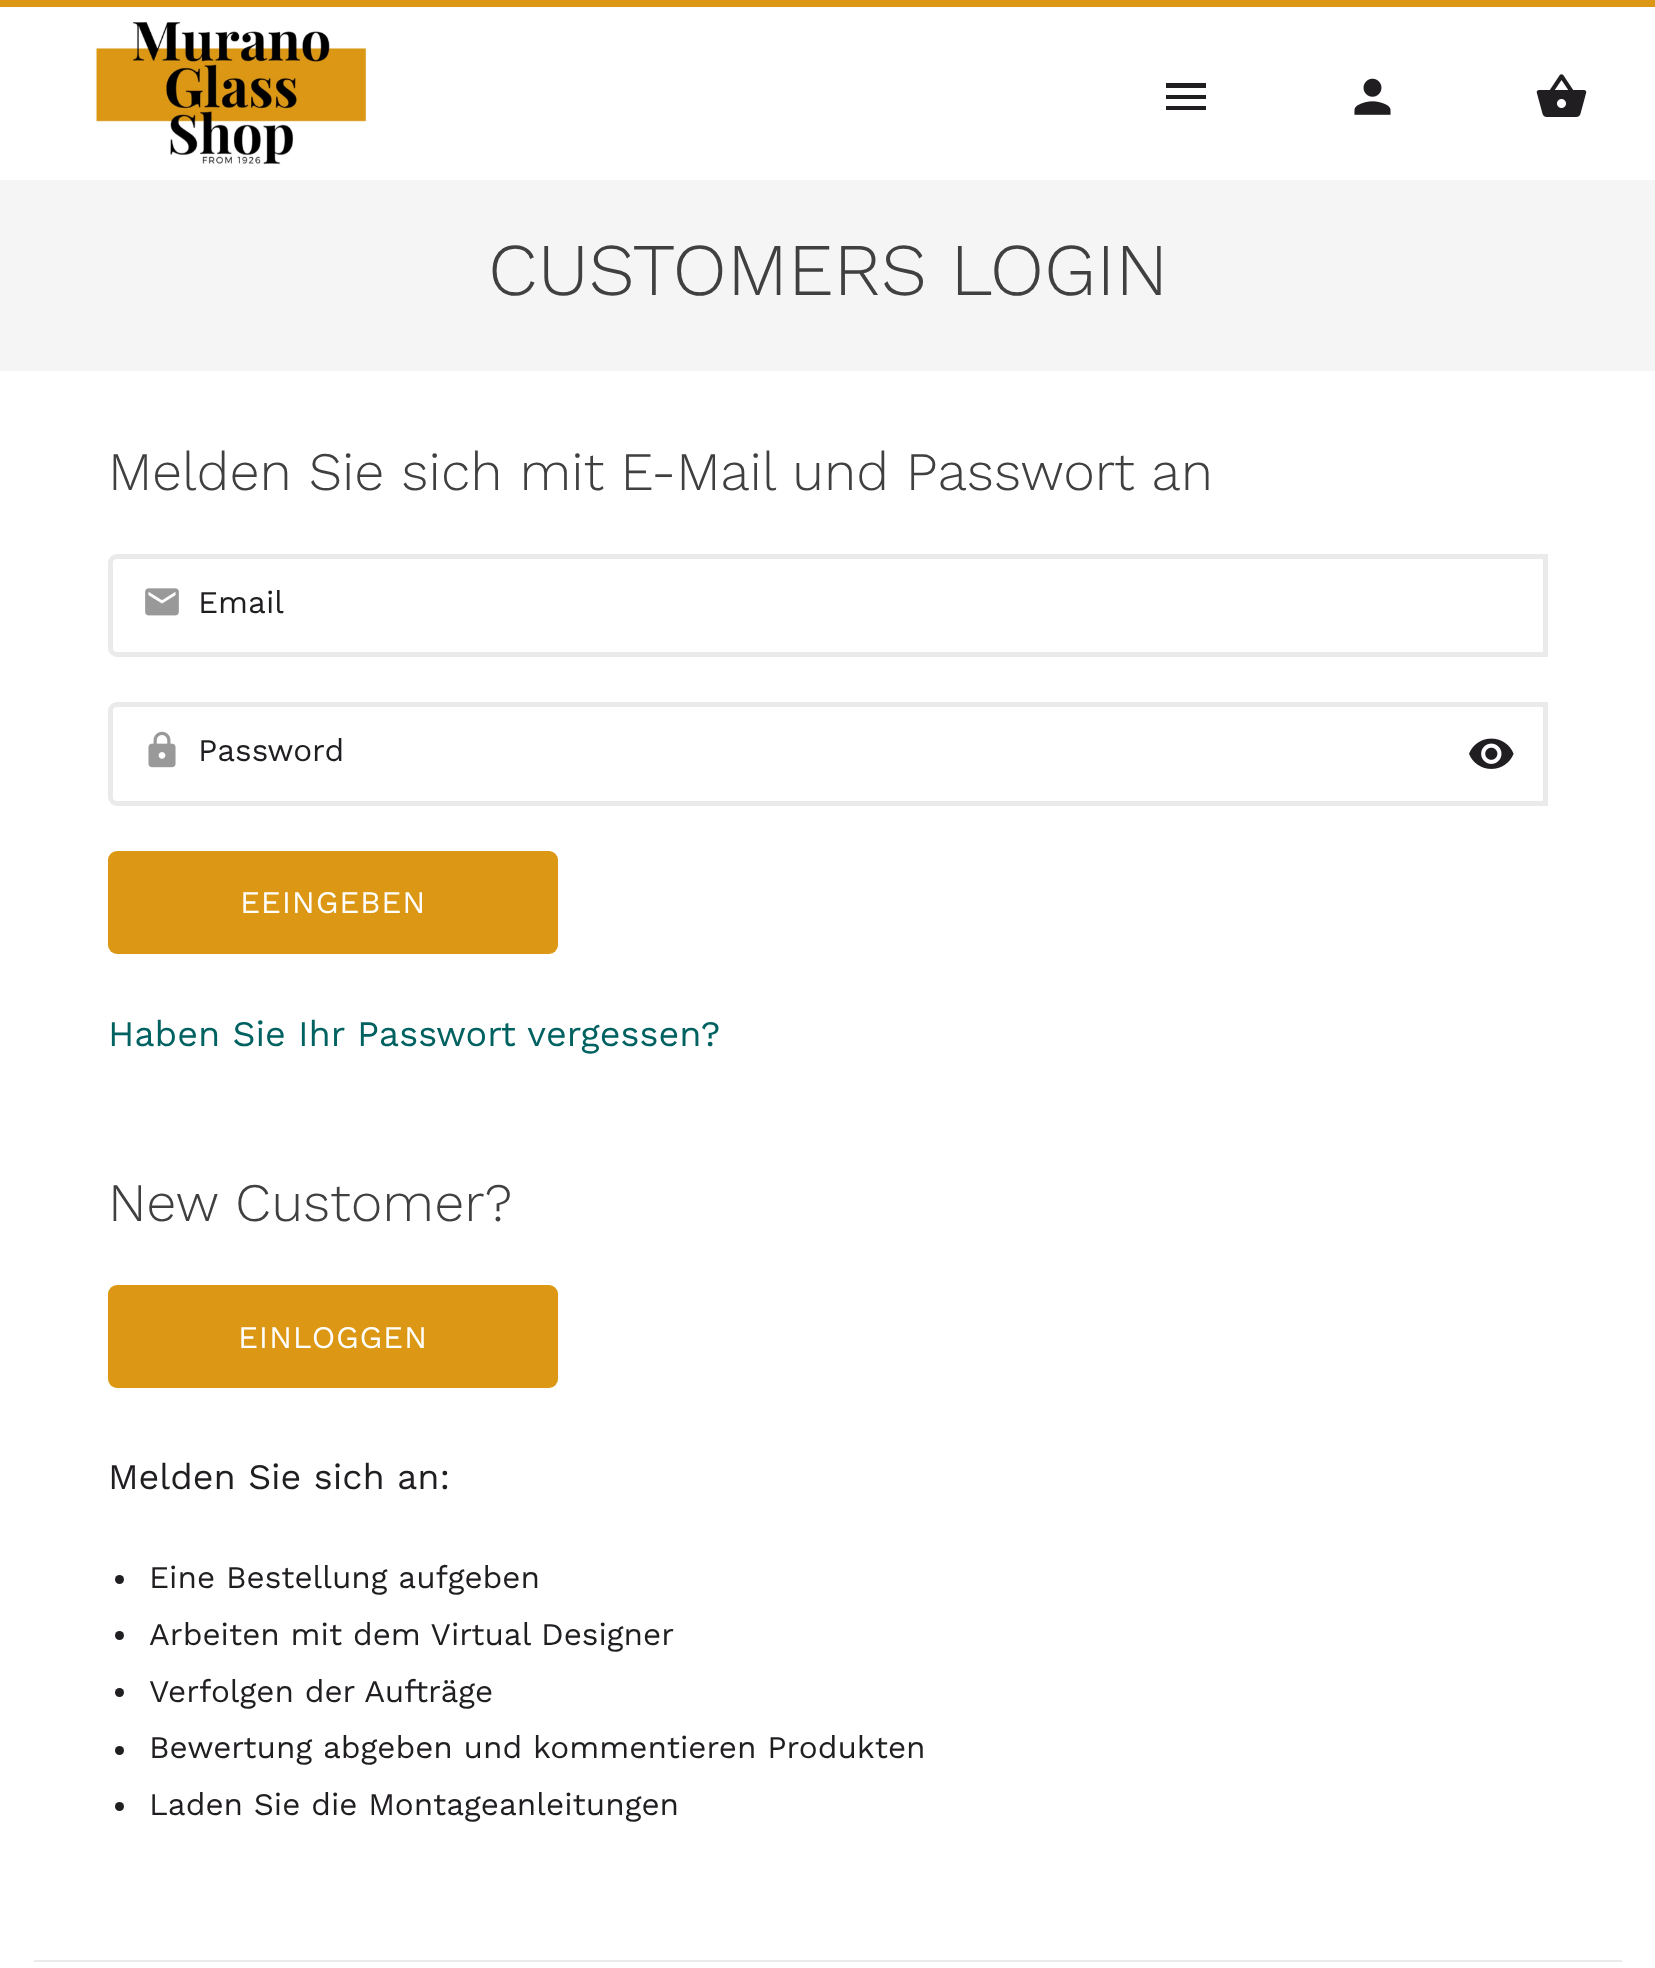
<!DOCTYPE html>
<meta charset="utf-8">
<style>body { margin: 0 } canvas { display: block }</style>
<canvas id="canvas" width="1655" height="1968"></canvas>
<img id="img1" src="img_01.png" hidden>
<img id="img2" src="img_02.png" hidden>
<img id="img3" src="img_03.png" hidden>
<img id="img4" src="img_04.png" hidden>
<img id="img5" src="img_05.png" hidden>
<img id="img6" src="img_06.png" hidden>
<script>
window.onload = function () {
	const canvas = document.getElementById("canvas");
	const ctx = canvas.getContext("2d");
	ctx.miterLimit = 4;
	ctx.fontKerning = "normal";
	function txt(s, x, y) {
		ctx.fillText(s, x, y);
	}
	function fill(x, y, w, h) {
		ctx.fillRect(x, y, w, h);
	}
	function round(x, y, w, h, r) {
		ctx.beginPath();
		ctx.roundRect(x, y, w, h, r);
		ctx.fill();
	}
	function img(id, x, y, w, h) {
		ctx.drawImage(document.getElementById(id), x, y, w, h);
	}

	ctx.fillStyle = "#FFFFFF";
	fill(0, 0, 1655, 1968);
	ctx.fillStyle = "#DC9814";
	fill(0, 0, 1655, 7);
	img("img1", 94, 22, 273, 143);
	ctx.fillStyle = "#211E22";
	ctx.beginPath();
	ctx.moveTo(1166, 83);
	ctx.lineTo(1206, 83);
	ctx.lineTo(1206, 88);
	ctx.lineTo(1166, 88);
	ctx.closePath();
	ctx.moveTo(1166, 99);
	ctx.lineTo(1166, 95);
	ctx.lineTo(1206, 95);
	ctx.lineTo(1206, 99);
	ctx.closePath();
	ctx.moveTo(1166, 110);
	ctx.lineTo(1166, 106);
	ctx.lineTo(1206, 106);
	ctx.lineTo(1206, 110);
	ctx.closePath();
	ctx.fill();
	img("img2", 1354, 78, 37, 37);
	img("img3", 1536, 74, 51, 43);
	ctx.fillStyle = "#F5F5F5";
	fill(0, 180, 1655, 191);
	ctx.beginPath();
	ctx.roundRect(110.5, 556.5, 1435, 98, [6.5, 0, 0, 6.5]);
	ctx.strokeStyle = "#EAEAEA";
	ctx.lineWidth = 5;
	ctx.stroke();
	img("img4", 145, 588, 34, 28);
	ctx.beginPath();
	ctx.roundRect(110.5, 704.5, 1435, 99, [6.5, 0, 0, 6.5]);
	ctx.stroke();
	img("img5", 148, 731, 28, 37);
	img("img6", 1469, 738, 45, 31);
	ctx.fillStyle = "#DC9814";
	round(108, 851, 450, 103, 9);
	round(108, 1285, 450, 103, 9);
	ctx.fillStyle = "#211E22";
	ctx.beginPath();
	ctx.arc(119.5, 1579.5, 4.5, 0, Math.PI * 2);
	ctx.fill();
	ctx.beginPath();
	ctx.arc(119.5, 1635.5, 4.5, 0, Math.PI * 2);
	ctx.fill();
	ctx.beginPath();
	ctx.arc(119.5, 1692.5, 4.5, 0, Math.PI * 2);
	ctx.fill();
	ctx.beginPath();
	ctx.arc(119.5, 1750.5, 4.5, 0, Math.PI * 2);
	ctx.fill();
	ctx.beginPath();
	ctx.arc(119.5, 1806.5, 4.5, 0, Math.PI * 2);
	ctx.fill();
	ctx.fillStyle = "#EAEAEA";
	fill(34, 1960, 1588, 2);
	ctx.font = "300 74.25px Work Sans";
	ctx.fillStyle = "#404040";
	txt("CUSTOMERS LOGIN", 488, 295);
	ctx.font = "300 54px Work Sans";
	txt("Melden Sie sich mit E-Mail und Passwort an", 108, 490);
	ctx.font = "31.5px Work Sans";
	ctx.fillStyle = "#211E22";
	txt("Email", 198, 613);
	txt("Password", 198, 761);
	ctx.letterSpacing = "0.75px";
	ctx.fillStyle = "#FFFFFF";
	txt("EEINGEBEN", 240, 913);
	ctx.letterSpacing = "0px";
	ctx.font = "36px Work Sans";
	ctx.fillStyle = "#006161";
	txt("Haben Sie Ihr Passwort vergessen?", 108, 1046);
	ctx.font = "300 54px Work Sans";
	ctx.fillStyle = "#404040";
	txt("New Customer?", 108, 1221);
	ctx.letterSpacing = "0.75px";
	ctx.font = "31.5px Work Sans";
	ctx.fillStyle = "#FFFFFF";
	txt("EINLOGGEN", 238, 1348);
	ctx.letterSpacing = "0px";
	ctx.font = "36px Work Sans";
	ctx.fillStyle = "#211E22";
	txt("Melden Sie sich an:", 108, 1489);
	ctx.font = "31.5px Work Sans";
	txt("Eine Bestellung aufgeben", 149, 1588);
	txt("Arbeiten mit dem Virtual Designer", 149, 1645);
	txt("Verfolgen der Aufträge", 149, 1702);
	txt("Bewertung abgeben und kommentieren Produkten", 149, 1758);
	txt("Laden Sie die Montageanleitungen", 149, 1815);
};
</script>
